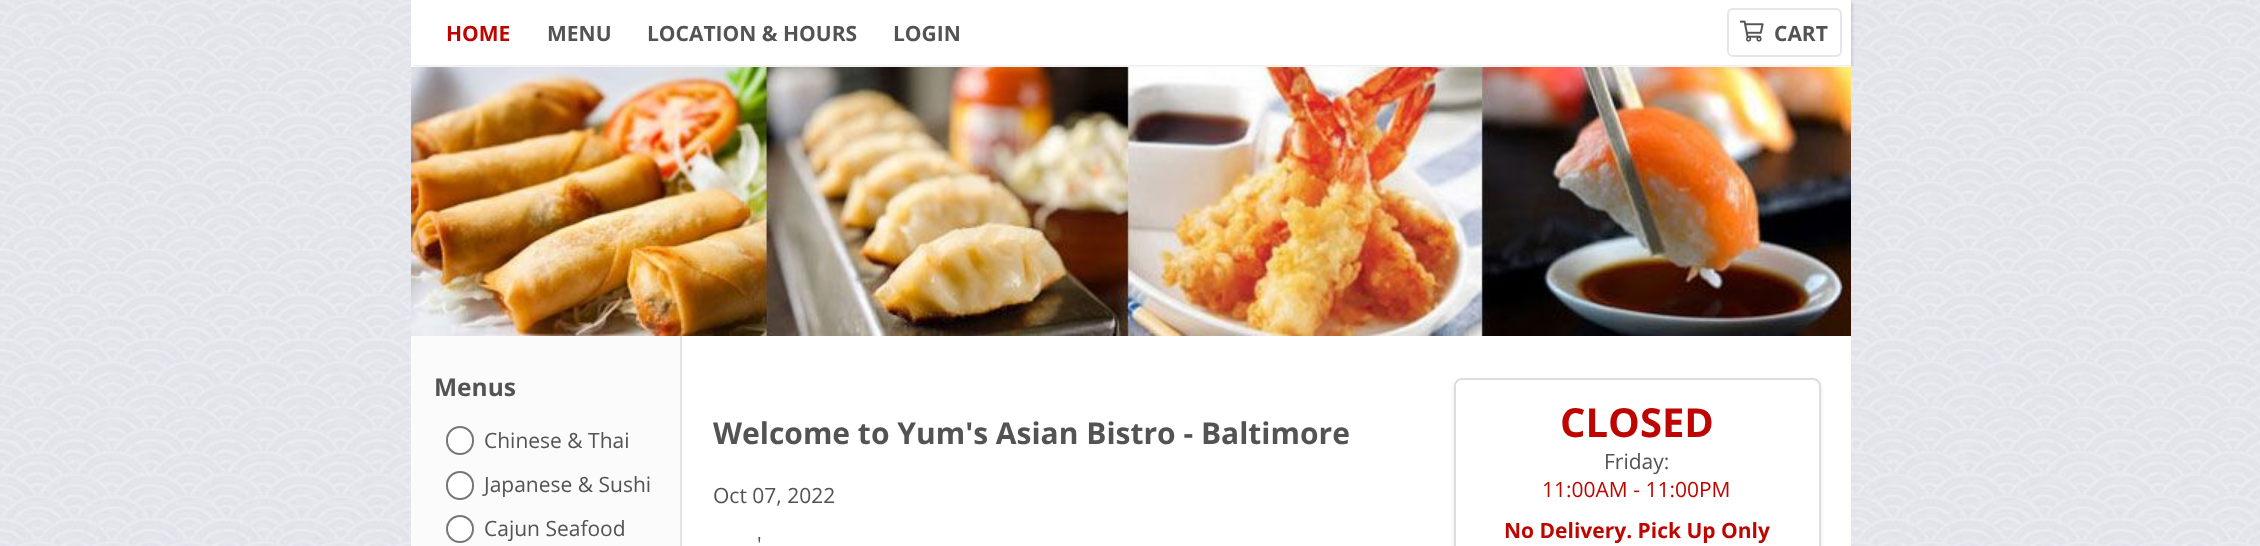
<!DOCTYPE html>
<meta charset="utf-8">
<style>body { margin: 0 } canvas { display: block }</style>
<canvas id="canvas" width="2260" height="546"></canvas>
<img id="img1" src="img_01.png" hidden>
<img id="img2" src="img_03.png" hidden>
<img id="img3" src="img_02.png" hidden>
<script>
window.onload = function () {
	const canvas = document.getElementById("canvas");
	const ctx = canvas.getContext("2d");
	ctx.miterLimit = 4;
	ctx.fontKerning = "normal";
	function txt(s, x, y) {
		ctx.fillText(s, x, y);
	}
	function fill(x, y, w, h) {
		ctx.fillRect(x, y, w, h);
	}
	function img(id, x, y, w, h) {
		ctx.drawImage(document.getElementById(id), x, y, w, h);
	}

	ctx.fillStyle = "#FFFFFF";
	fill(0, 0, 2260, 546);
	img("img1", 0, 0, 2260, 546);
	img("img2", 411, 67, 1440, 269);
	fill(411, 65, 1440, 2);
	ctx.fillStyle = "rgba(0, 0, 0, 0.1)";
	ctx.filter = "blur(1px)";
	ctx.beginPath();
	ctx.rect(413, 2, 1440, 64);
	ctx.fill();
	ctx.filter = "none";
	ctx.fillStyle = "#FFFFFF";
	fill(411, 0, 1440, 65);
	ctx.beginPath();
	ctx.roundRect(1728, 9, 113, 47, 5);
	ctx.strokeStyle = "#E6E6E6";
	ctx.lineWidth = 2;
	ctx.stroke();
	img("img3", 1740, 20, 24, 22);
	ctx.fillStyle = "#FBFBFB";
	fill(411, 336, 269, 210);
	ctx.fillStyle = "#FFFFFF";
	ctx.beginPath();
	ctx.roundRect(447, 427, 26, 27, 13);
	ctx.fill();
	ctx.strokeStyle = "#767676";
	ctx.stroke();
	ctx.beginPath();
	ctx.roundRect(447, 472, 26, 27, 13);
	ctx.fill();
	ctx.stroke();
	ctx.beginPath();
	ctx.arc(460, 529, 13, 0, Math.PI * 2);
	ctx.fill();
	ctx.stroke();
	fill(682, 336, 1169, 210);
	ctx.fillStyle = "#E3E3E3";
	fill(680, 336, 2, 210);
	ctx.save();
	ctx.beginPath();
	ctx.moveTo(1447, 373);
	ctx.lineTo(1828, 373);
	ctx.lineTo(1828, 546);
	ctx.lineTo(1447, 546);
	ctx.closePath();
	ctx.moveTo(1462, 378);
	ctx.lineTo(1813, 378);
	ctx.bezierCurveTo(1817.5, 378, 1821, 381.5, 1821, 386);
	ctx.lineTo(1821, 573);
	ctx.bezierCurveTo(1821, 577.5, 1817.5, 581, 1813, 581);
	ctx.lineTo(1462, 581);
	ctx.bezierCurveTo(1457.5, 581, 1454, 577.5, 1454, 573);
	ctx.lineTo(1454, 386);
	ctx.bezierCurveTo(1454, 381.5, 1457.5, 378, 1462, 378);
	ctx.closePath();
	ctx.clip("evenodd");
	ctx.fillStyle = "rgba(0, 0, 0, 0.1)";
	ctx.filter = "blur(2px)";
	ctx.beginPath();
	ctx.roundRect(1454, 380, 367, 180, 8);
	ctx.fill();
	ctx.filter = "none";
	ctx.restore();
	ctx.beginPath();
	ctx.roundRect(1455, 379, 365, 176, 7);
	ctx.strokeStyle = "#DDDDDD";
	ctx.stroke();
	ctx.font = "bold 21px Open Sans";
	ctx.fillStyle = "#BD0600";
	txt("HOME", 446, 41);
	ctx.fillStyle = "#535353";
	txt("MENU", 547, 41);
	txt("LOCATION & HOURS", 647, 41);
	txt("LOGIN", 893, 41);
	txt("CART", 1774, 41);
	ctx.font = "bold 24.5px Open Sans";
	txt("Menus", 434, 396);
	ctx.font = "21px Open Sans";
	txt("Chinese & Thai", 484, 448);
	txt("Japanese & Sushi", 484, 492);
	txt("Cajun Seafood", 484, 536);
	ctx.font = "bold 30px Open Sans";
	txt("Welcome to Yum's Asian Bistro - Baltimore", 713, 444);
	ctx.font = "21px Open Sans";
	txt("Oct 07, 2022", 713, 503);
	txt("'", 757, 552);
	ctx.font = "bold 40px Open Sans";
	ctx.fillStyle = "#BD0600";
	txt("CLOSED", 1560, 437);
	ctx.font = "21px Open Sans";
	ctx.fillStyle = "#535353";
	txt("Friday:", 1604, 469);
	ctx.fillStyle = "#BD0600";
	txt("11:00AM - 11:00PM", 1542, 497);
	ctx.font = "bold 21px Open Sans";
	txt("No Delivery. Pick Up Only", 1504, 538);
};
</script>
